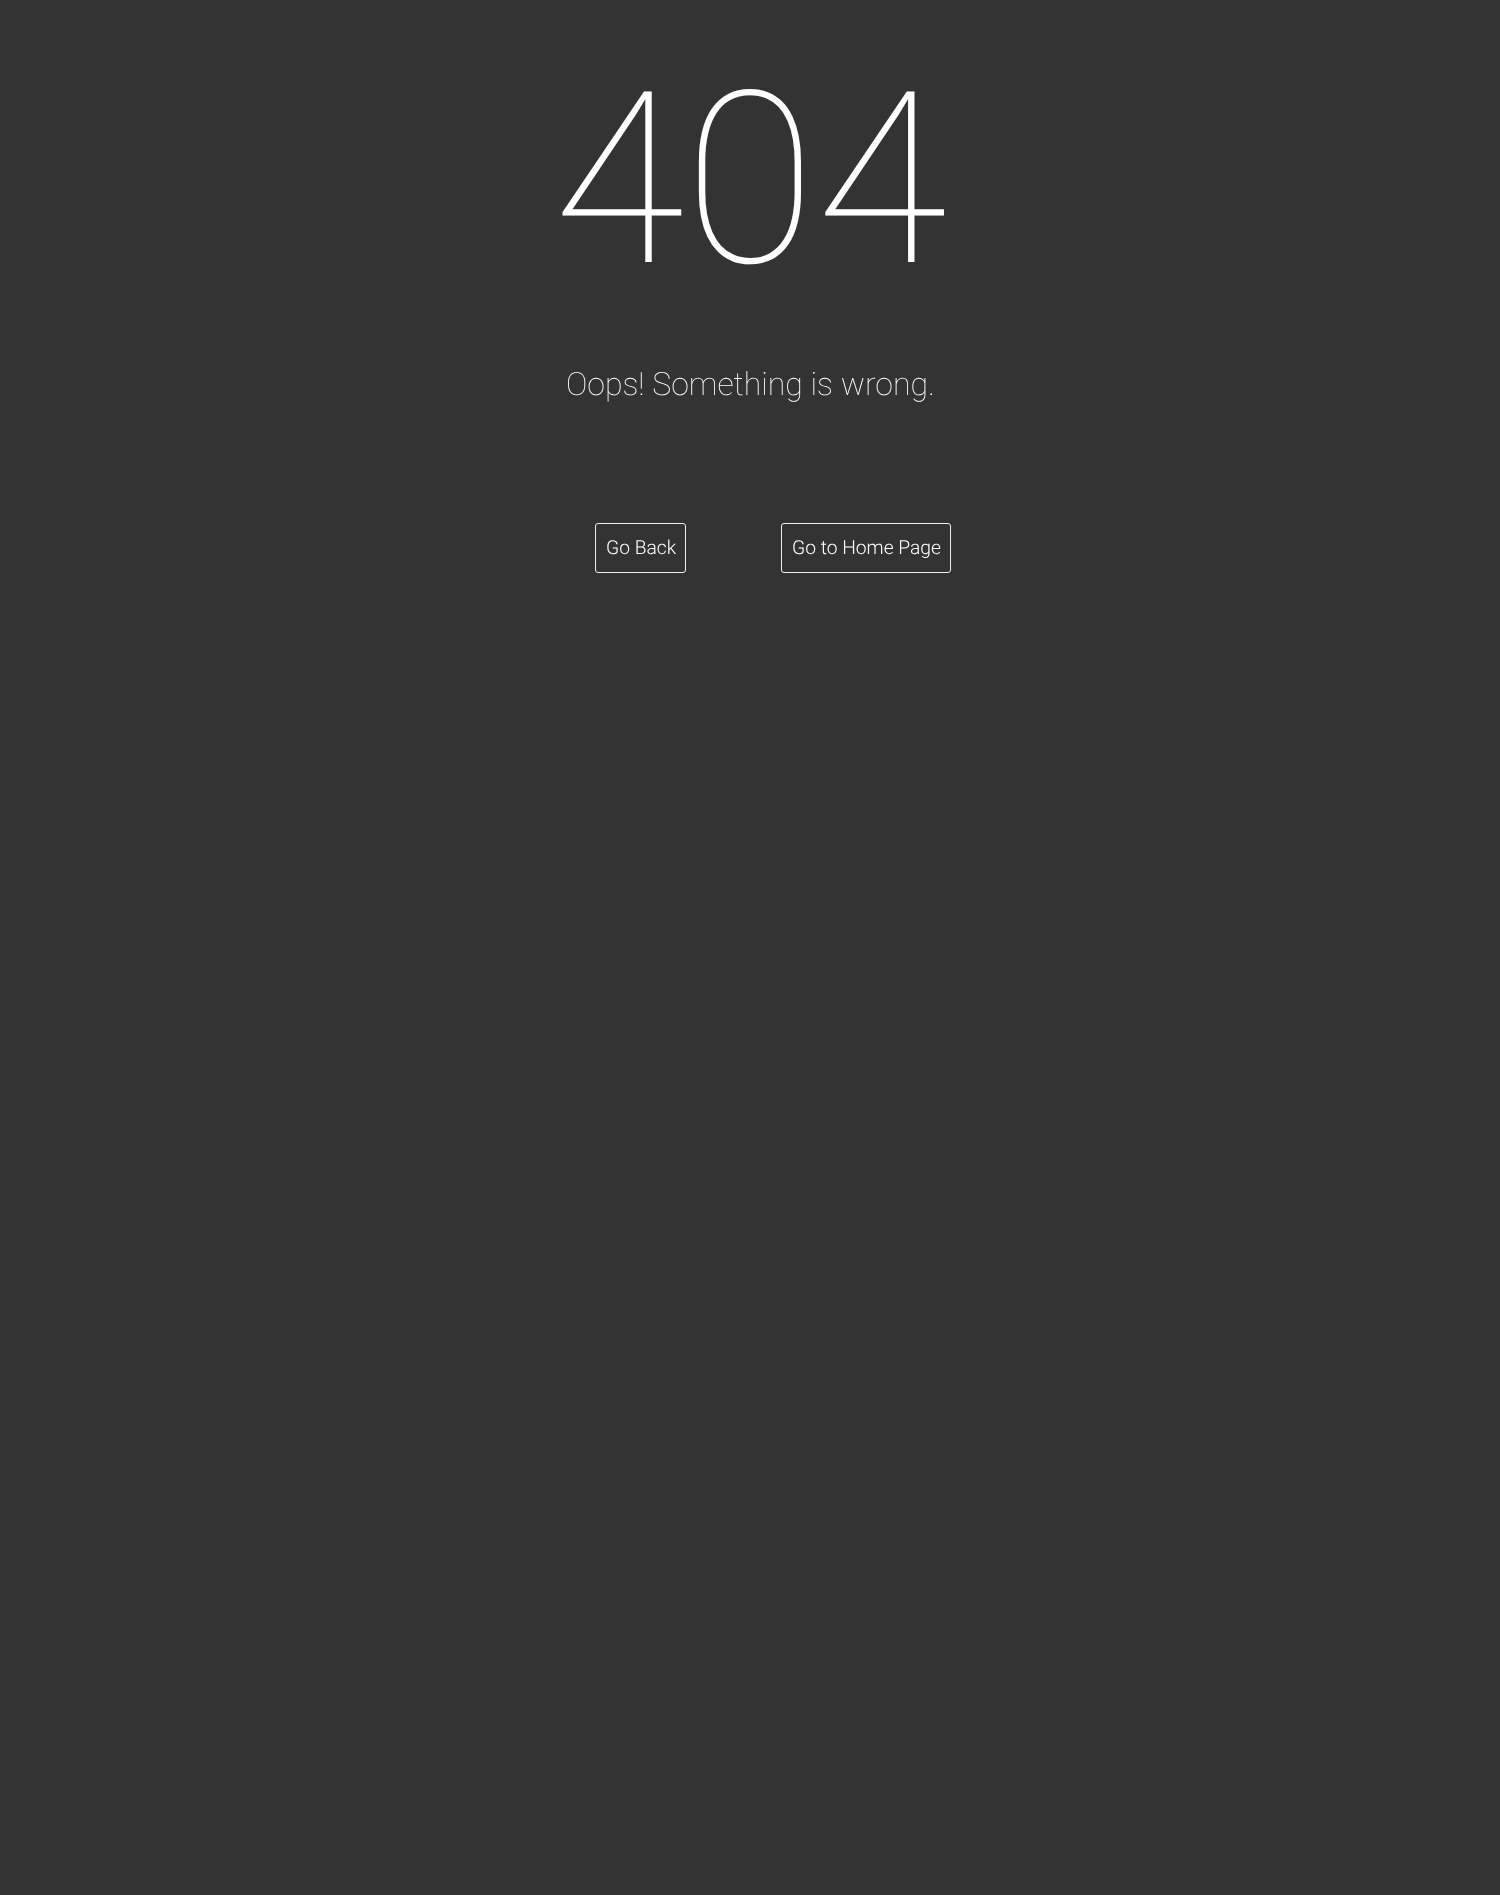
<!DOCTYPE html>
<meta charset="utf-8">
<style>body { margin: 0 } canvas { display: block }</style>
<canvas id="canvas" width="1500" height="1895"></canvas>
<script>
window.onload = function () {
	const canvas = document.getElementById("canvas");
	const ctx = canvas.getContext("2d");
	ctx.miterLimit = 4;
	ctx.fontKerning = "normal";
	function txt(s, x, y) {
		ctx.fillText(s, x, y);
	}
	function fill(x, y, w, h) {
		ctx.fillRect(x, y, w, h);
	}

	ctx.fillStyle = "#333333";
	fill(0, 0, 1500, 1895);
	ctx.beginPath();
	ctx.roundRect(595.5, 523.5, 90, 49, 2.5);
	ctx.strokeStyle = "#EFEFEF";
	ctx.stroke();
	ctx.beginPath();
	ctx.roundRect(781.5, 523.5, 169, 49, 2.5);
	ctx.stroke();
	ctx.font = "100 240px Roboto";
	ctx.fillStyle = "#FFFFFF";
	txt("404", 553, 262);
	ctx.font = "100 32px Roboto";
	txt("Oops! Something is wrong.", 566, 395);
	ctx.font = "300 19.25px Roboto";
	txt("Go Back", 606, 554);
	txt("Go to Home Page", 792, 554);
};
</script>
